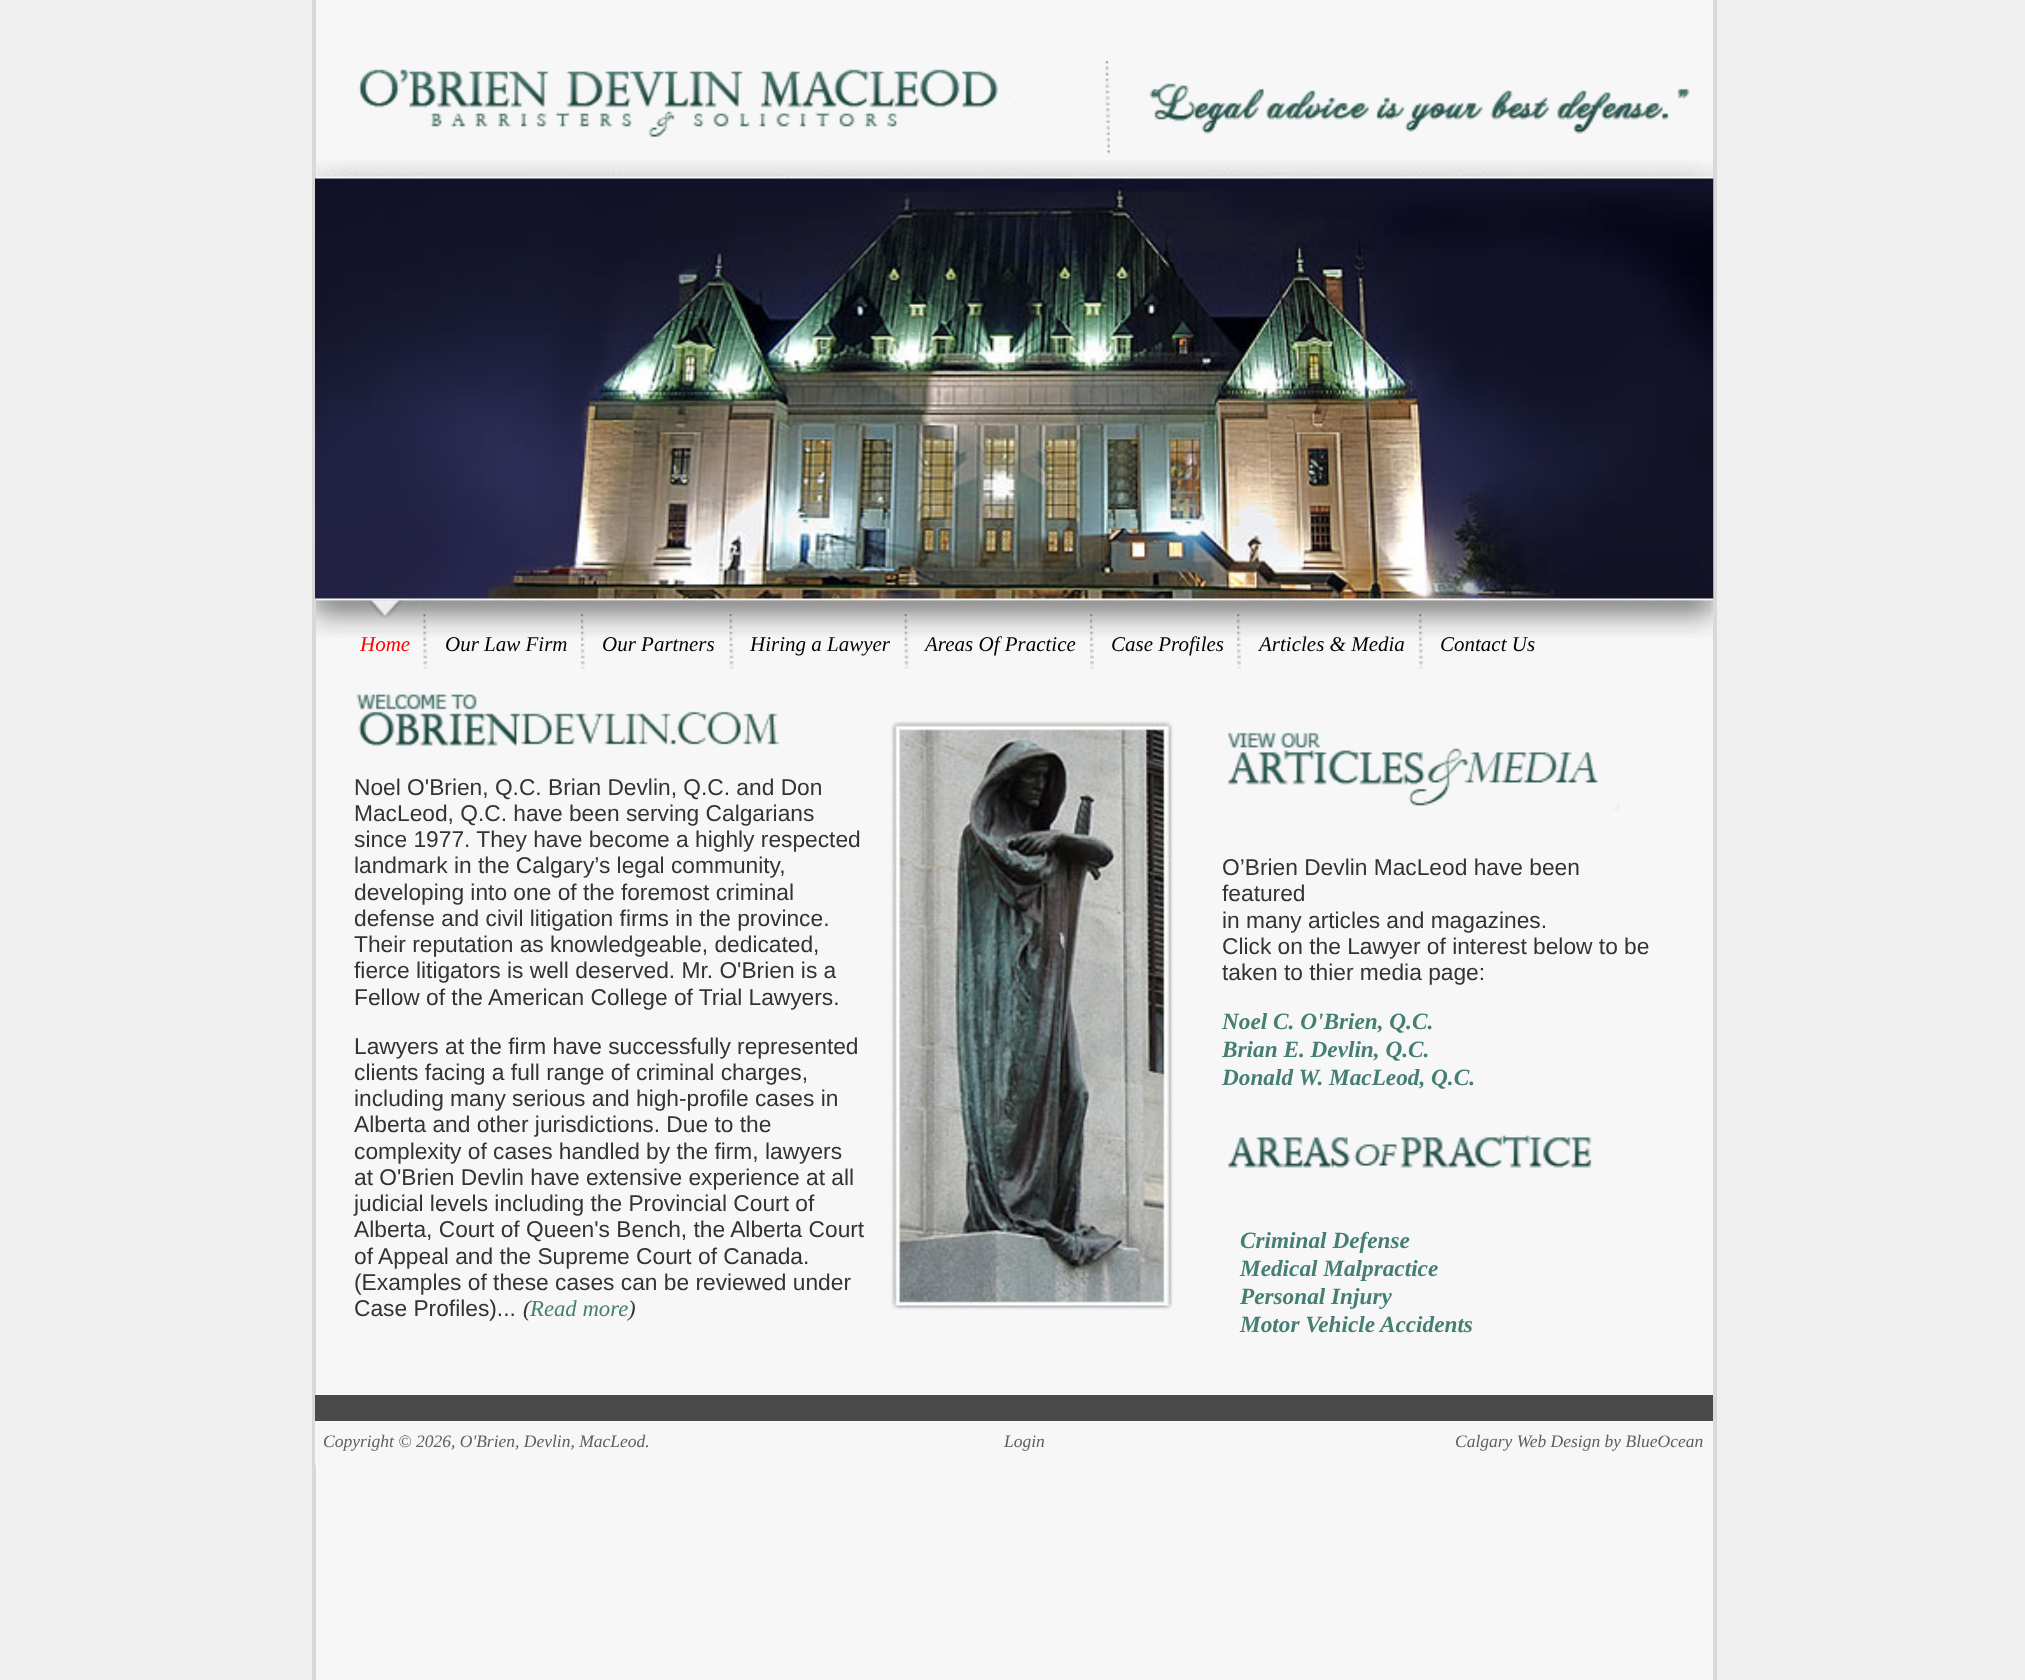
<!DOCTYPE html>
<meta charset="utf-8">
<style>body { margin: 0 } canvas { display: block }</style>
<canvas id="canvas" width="2025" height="1680"></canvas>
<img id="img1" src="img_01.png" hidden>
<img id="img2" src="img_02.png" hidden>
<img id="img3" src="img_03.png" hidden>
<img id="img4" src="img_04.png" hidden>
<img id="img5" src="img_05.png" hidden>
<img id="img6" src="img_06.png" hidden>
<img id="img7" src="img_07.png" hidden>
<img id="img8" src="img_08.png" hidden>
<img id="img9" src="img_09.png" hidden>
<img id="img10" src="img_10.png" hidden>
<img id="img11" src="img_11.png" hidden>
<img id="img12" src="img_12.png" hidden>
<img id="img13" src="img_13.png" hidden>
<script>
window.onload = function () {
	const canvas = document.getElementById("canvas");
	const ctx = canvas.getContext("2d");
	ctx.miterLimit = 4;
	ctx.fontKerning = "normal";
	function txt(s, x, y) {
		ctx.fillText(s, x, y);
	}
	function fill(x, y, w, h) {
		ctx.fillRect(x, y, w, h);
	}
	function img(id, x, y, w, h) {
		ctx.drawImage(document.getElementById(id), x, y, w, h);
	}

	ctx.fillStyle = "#EFEFEF";
	fill(0, 0, 2025, 1680);
	ctx.fillStyle = "#F7F7F7";
	fill(316, 0, 1397, 1680);
	img("img1", 316, 160, 1397, 478);
	ctx.fillStyle = "#D8D8D8";
	fill(1713, 0, 4, 1680);
	fill(312, 0, 4, 1680);
	img("img2", 358, 69, 653, 68);
	img("img3", 1105, 60, 585, 94);
	ctx.fillStyle = "#FFFFFF";
	fill(315, 598, 1398, 1);
	img("img4", 315, 178, 1399, 421);
	img("img5", 423, 614, 4, 55);
	img("img6", 369, 600, 32, 19);
	img("img7", 581, 614, 4, 55);
	img("img8", 729, 614, 5, 55);
	img("img8", 904, 614, 5, 55);
	img("img9", 1090, 614, 4, 55);
	img("img9", 1237, 614, 4, 55);
	img("img9", 1419, 614, 4, 55);
	img("img10", 356, 694, 424, 52);
	img("img11", 891, 721, 282, 589);
	img("img12", 1228, 732, 392, 78);
	img("img13", 1228, 1135, 364, 33);
	ctx.fillStyle = "#F7F7F7";
	fill(315, 1421, 1, 44);
	ctx.fillStyle = "#494949";
	fill(315, 1395, 1398, 26);
	ctx.font = "italic 21px Liberation Serif";
	ctx.fillStyle = "#FF0000";
	txt("Home", 360, 651);
	ctx.fillStyle = "#000000";
	txt("Our Law Firm", 445, 651);
	txt("Our Partners", 602, 651);
	txt("Hiring a Lawyer", 750, 651);
	txt("Areas Of Practice", 925, 651);
	txt("Case Profiles", 1111, 651);
	txt("Articles & Media", 1259, 651);
	txt("Contact Us", 1440, 651);
	ctx.font = "22.75px Liberation Sans";
	ctx.fillStyle = "#333333";
	txt("Noel O'Brien, Q.C. Brian Devlin, Q.C. and Don", 354, 795);
	txt("MacLeod, Q.C. have been serving Calgarians", 354, 821);
	txt("since 1977. They have become a highly respected", 354, 847);
	txt("landmark in the Calgary’s legal community,", 354, 873);
	txt("developing into one of the foremost criminal", 354, 900);
	txt("defense and civil litigation firms in the province.", 354, 926);
	txt("Their reputation as knowledgeable, dedicated,", 354, 952);
	txt("fierce litigators is well deserved. Mr. O'Brien is a", 354, 978);
	txt("Fellow of the American College of Trial Lawyers.", 354, 1005);
	txt("Lawyers at the firm have successfully represented", 354, 1054);
	txt("clients facing a full range of criminal charges,", 354, 1080);
	txt("including many serious and high-profile cases in", 354, 1106);
	txt("Alberta and other jurisdictions. Due to the", 354, 1132);
	txt("complexity of cases handled by the firm, lawyers", 354, 1159);
	txt("at O'Brien Devlin have extensive experience at all", 354, 1185);
	txt("judicial levels including the Provincial Court of", 354, 1211);
	txt("Alberta, Court of Queen's Bench, the Alberta Court", 354, 1237);
	txt("of Appeal and the Supreme Court of Canada.", 354, 1264);
	txt("(Examples of these cases can be reviewed under", 354, 1290);
	txt("Case Profiles)...", 354, 1316);
	ctx.font = "italic 22.75px Liberation Serif";
	txt("(", 523, 1316);
	ctx.fillStyle = "#457E73";
	txt("Read more", 530, 1316);
	ctx.fillStyle = "#333333";
	txt(")", 628, 1316);
	ctx.font = "22.75px Liberation Sans";
	txt("O’Brien Devlin MacLeod have been", 1222, 875);
	txt("featured", 1222, 901);
	txt("in many articles and magazines.", 1222, 928);
	txt("Click on the Lawyer of interest below to be", 1222, 954);
	txt("taken to thier media page:", 1222, 980);
	ctx.font = "italic bold 23.25px Liberation Serif";
	ctx.fillStyle = "#457E73";
	txt("Noel C. O'Brien, Q.C.", 1222, 1029);
	txt("Brian E. Devlin, Q.C.", 1222, 1057);
	txt("Donald W. MacLeod, Q.C.", 1222, 1085);
	txt("Criminal Defense", 1240, 1248);
	txt("Medical Malpractice", 1240, 1276);
	txt("Personal Injury", 1240, 1304);
	txt("Motor Vehicle Accidents", 1240, 1332);
	ctx.font = "italic 17.5px Liberation Serif";
	ctx.fillStyle = "#5E5E5E";
	txt("Copyright © 2026, O'Brien, Devlin, MacLeod.", 323, 1447);
	txt("Login", 1004, 1447);
	txt("Calgary Web Design by BlueOcean", 1455, 1447);
};
</script>
